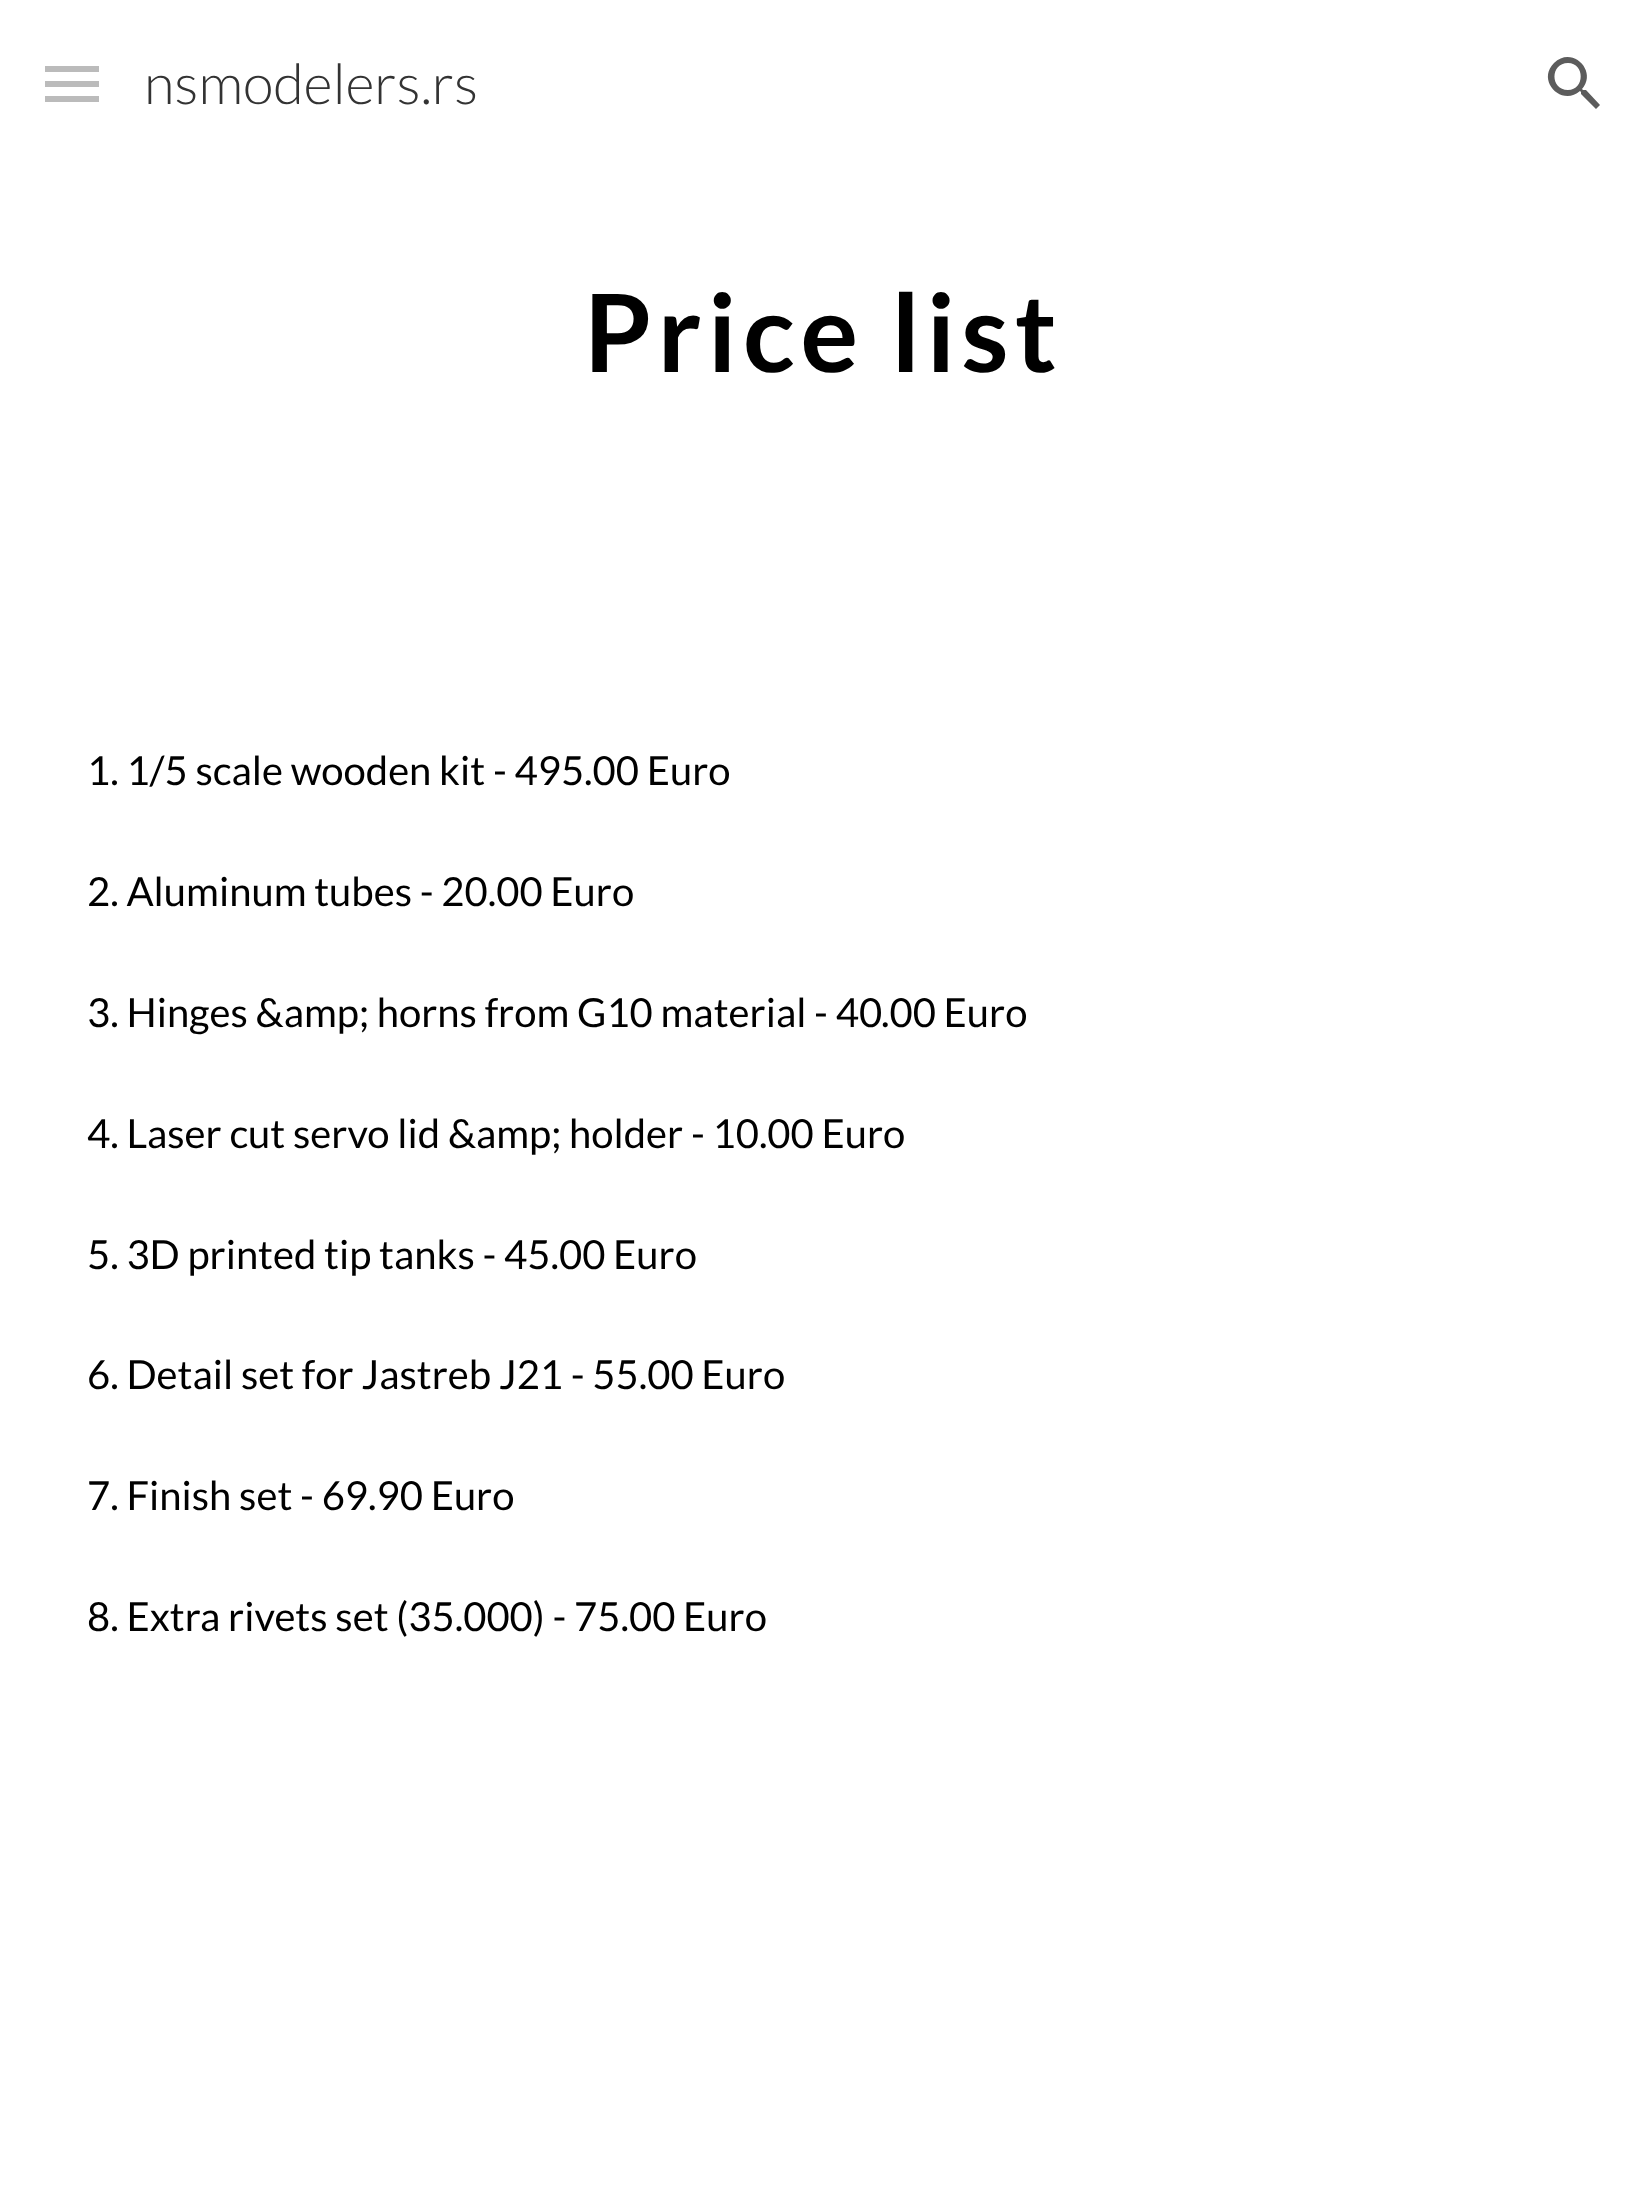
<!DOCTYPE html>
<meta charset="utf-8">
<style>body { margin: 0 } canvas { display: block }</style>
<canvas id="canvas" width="1645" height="2185"></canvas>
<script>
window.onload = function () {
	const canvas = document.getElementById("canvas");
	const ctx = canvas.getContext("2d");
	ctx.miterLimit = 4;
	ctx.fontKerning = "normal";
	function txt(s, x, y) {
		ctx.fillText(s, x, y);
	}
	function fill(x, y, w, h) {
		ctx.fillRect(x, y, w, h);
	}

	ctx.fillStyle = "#FFFFFF";
	fill(0, 0, 1645, 2185);
	ctx.fillStyle = "#B2B2B2";
	fill(45, 66, 54, 6);
	fill(45, 81, 54, 6);
	fill(45, 96, 54, 6);
	ctx.fillStyle = "rgba(255, 255, 255, 0.12)";
	fill(45, 66, 54, 36);
	ctx.fillStyle = "#5C5C5C";
	ctx.beginPath();
	ctx.moveTo(1586, 90);
	ctx.lineTo(1583, 90);
	ctx.lineTo(1582, 89);
	ctx.bezierCurveTo(1598, 71, 1572, 45, 1554, 63);
	ctx.bezierCurveTo(1536, 81, 1562, 107, 1580, 91);
	ctx.lineTo(1581, 92);
	ctx.lineTo(1581, 94);
	ctx.lineTo(1596, 109);
	ctx.lineTo(1600, 105);
	ctx.closePath();
	ctx.moveTo(1568, 90);
	ctx.bezierCurveTo(1550, 90, 1550, 63, 1568, 63);
	ctx.bezierCurveTo(1585, 63, 1585, 90, 1568, 90);
	ctx.closePath();
	ctx.fill();
	ctx.font = "300 56px Lato";
	ctx.fillStyle = "#333333";
	txt("nsmodelers.rs", 144, 104);
	ctx.letterSpacing = "6px";
	ctx.font = "bold 108px Lato";
	ctx.fillStyle = "#000000";
	txt("Price list", 584, 372);
	ctx.letterSpacing = "0px";
	ctx.font = "40px Lato";
	txt("1. 1/5 scale wooden kit - 495.00 Euro", 87, 785);
	txt("2. Aluminum tubes - 20.00 Euro", 87, 906);
	txt("3. Hinges &amp; horns from G10 material - 40", 87, 1027);
	txt(".00 Euro", 881, 1027);
	txt("4. Laser cut servo lid &amp; holder - 10.00 Euro", 87, 1148);
	txt("5. 3D printed tip tanks - 45.00 Euro", 87, 1269);
	txt("6. Detail set for Jastreb J21 - 55.00 Euro", 87, 1389);
	txt("7. Finish set - 69.90 Euro", 87, 1510);
	txt("8. Extra rivets set (35.000) - 75.00 Euro", 87, 1631);
};
</script>
